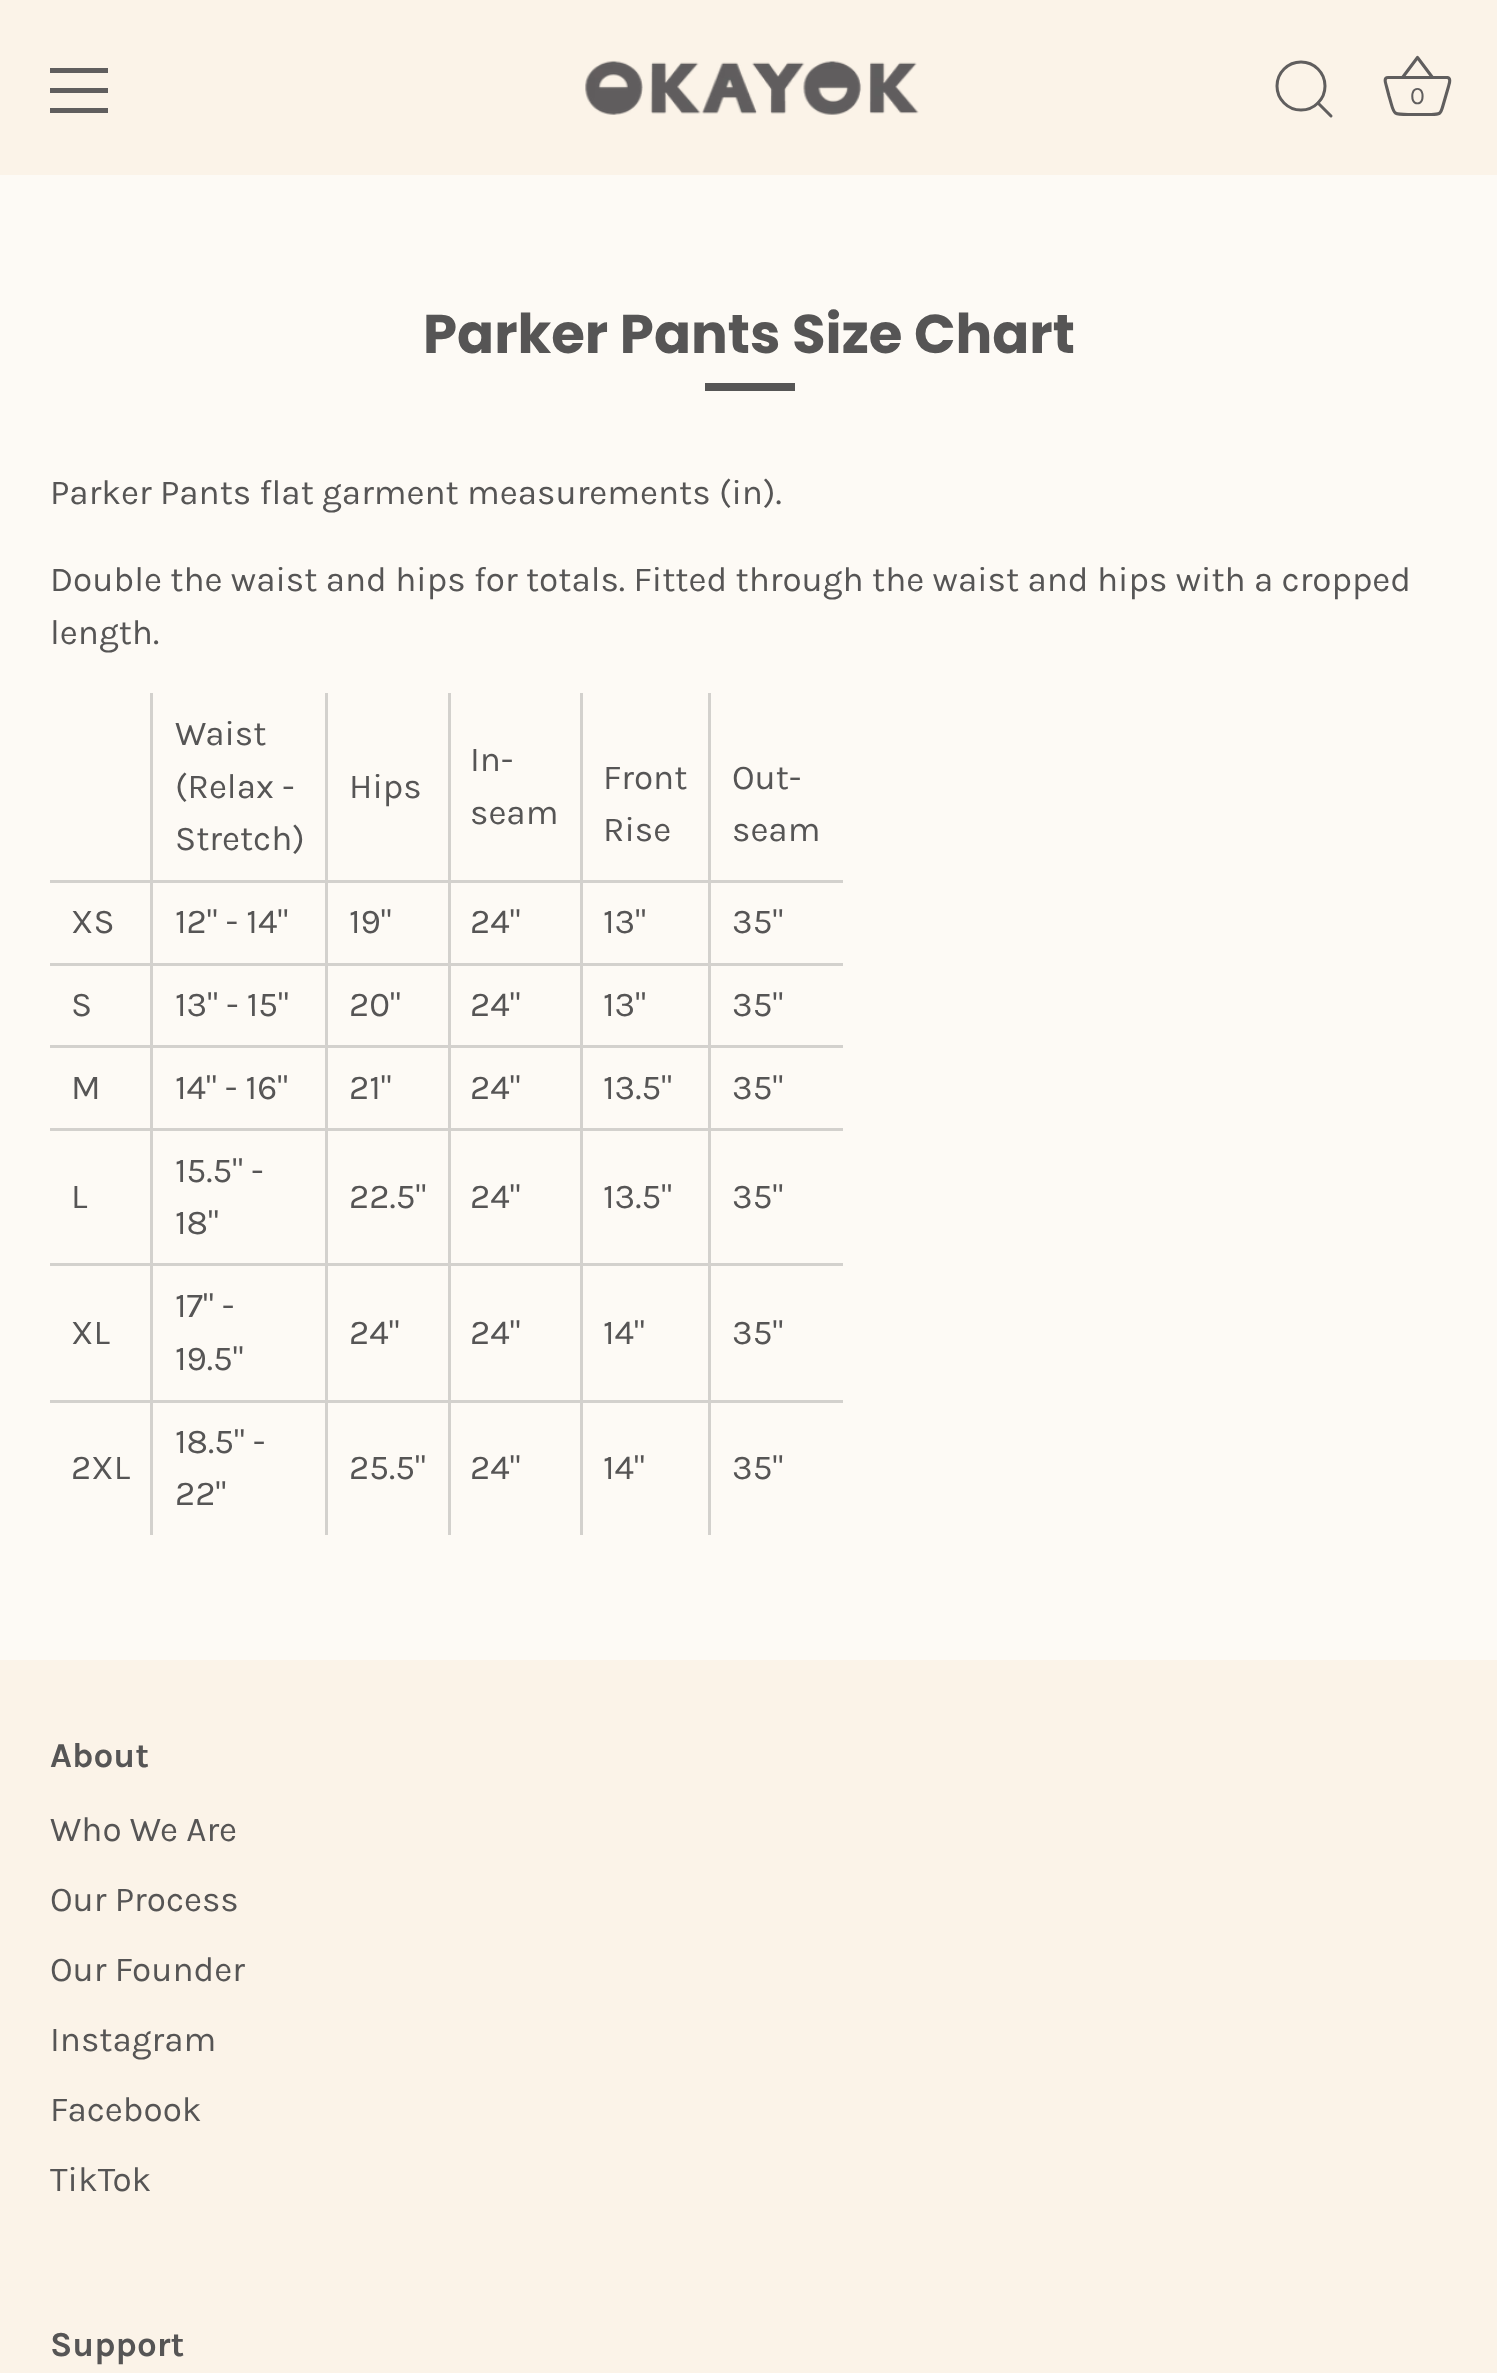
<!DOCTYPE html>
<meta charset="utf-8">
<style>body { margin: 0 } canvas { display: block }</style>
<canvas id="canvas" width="1497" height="2373"></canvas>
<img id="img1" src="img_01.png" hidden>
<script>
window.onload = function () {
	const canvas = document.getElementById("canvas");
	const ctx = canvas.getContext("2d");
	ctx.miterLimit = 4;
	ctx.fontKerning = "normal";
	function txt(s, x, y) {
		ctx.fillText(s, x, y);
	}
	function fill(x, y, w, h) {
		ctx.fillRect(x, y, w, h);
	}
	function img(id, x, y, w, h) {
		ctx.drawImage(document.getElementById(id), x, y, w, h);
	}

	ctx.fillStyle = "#FDFAF5";
	fill(0, 0, 1497, 2373);
	ctx.fillStyle = "#FBF3E8";
	fill(0, 0, 1497, 175);
	ctx.fillStyle = "#605E5E";
	fill(50, 68, 58, 5);
	fill(50, 88, 58, 5);
	fill(50, 108, 58, 5);
	img("img1", 585, 60, 334, 55);
	ctx.beginPath();
	ctx.arc(1301, 86, 24, 0, Math.PI * 2);
	ctx.strokeStyle = "#605E5E";
	ctx.lineWidth = 3;
	ctx.stroke();
	ctx.beginPath();
	ctx.moveTo(1331, 116);
	ctx.lineTo(1318, 103);
	ctx.lineCap = "round";
	ctx.lineJoin = "round";
	ctx.stroke();
	ctx.beginPath();
	ctx.moveTo(1388, 77.5);
	ctx.bezierCurveTo(1383, 77.5, 1386, 84, 1386.5, 86.5);
	ctx.lineTo(1389, 96);
	ctx.bezierCurveTo(1395, 115.5, 1391, 114.5, 1411.5, 114.5);
	ctx.lineTo(1429.5, 114.5);
	ctx.bezierCurveTo(1439.5, 114.5, 1440.5, 115, 1443, 105.5);
	ctx.lineTo(1448.5, 86.5);
	ctx.bezierCurveTo(1449, 84, 1451.5, 78.5, 1447.5, 77.5);
	ctx.lineTo(1388, 77.5);
	ctx.lineWidth = 3.1;
	ctx.lineCap = "butt";
	ctx.stroke();
	ctx.beginPath();
	ctx.moveTo(1402.5, 77.5);
	ctx.lineTo(1417.5, 57.5);
	ctx.lineTo(1432.5, 77.5);
	ctx.stroke();
	ctx.fillStyle = "#565555";
	fill(705, 383, 90, 8);
	ctx.fillStyle = "#D3D1CD";
	fill(50, 880, 793, 3);
	fill(50, 963, 793, 3);
	fill(50, 1045, 793, 3);
	fill(50, 1128, 793, 3);
	fill(50, 1263, 793, 3);
	fill(50, 1400, 793, 3);
	fill(150, 693, 3, 842);
	fill(325, 693, 3, 842);
	fill(448, 693, 3, 842);
	fill(580, 693, 3, 842);
	fill(708, 693, 3, 842);
	ctx.fillStyle = "#FBF3E8";
	fill(0, 1660, 1497, 713);
	ctx.font = "25px Karla";
	ctx.fillStyle = "#605E5E";
	txt("0", 1410, 104);
	ctx.font = "bold 54.6px Poppins";
	ctx.fillStyle = "#565555";
	txt("Parker Pants Size Chart", 423, 353);
	ctx.font = "35px Karla";
	txt("Parker Pants flat garment measurements (in).", 50, 504);
	txt("Double the waist and hips for totals. Fitted through the waist and hips with a cropped", 50, 591);
	txt("length.", 50, 644);
	txt("Waist", 175, 745);
	txt("(Relax -", 175, 798);
	txt("Stretch)", 175, 850);
	txt("Hips", 349, 798);
	txt("In-", 470, 771);
	txt("seam", 470, 824);
	txt("Front", 603, 789);
	txt("Rise", 603, 841);
	txt("Out-", 732, 789);
	txt("seam", 732, 841);
	txt("XS", 71, 933);
	txt("12\" - 14\"", 175, 933);
	txt("19\"", 349, 933);
	txt("24\"", 470, 933);
	txt("13\"", 603, 933);
	txt("35\"", 732, 933);
	txt("S", 71, 1016);
	txt("13\" - 15\"", 175, 1016);
	txt("20\"", 349, 1016);
	txt("24\"", 470, 1016);
	txt("13\"", 603, 1016);
	txt("35\"", 732, 1016);
	txt("M", 71, 1099);
	txt("14\" - 16\"", 175, 1099);
	txt("21\"", 349, 1099);
	txt("24\"", 470, 1099);
	txt("13.5\"", 603, 1099);
	txt("35\"", 732, 1099);
	txt("L", 71, 1208);
	txt("15.5\" -", 175, 1182);
	txt("18\"", 175, 1234);
	txt("22.5\"", 349, 1208);
	txt("24\"", 470, 1208);
	txt("13.5\"", 603, 1208);
	txt("35\"", 732, 1208);
	txt("XL", 71, 1344);
	txt("17\" -", 175, 1317);
	txt("19.5\"", 175, 1370);
	txt("24\"", 349, 1344);
	txt("24\"", 470, 1344);
	txt("14\"", 603, 1344);
	txt("35\"", 732, 1344);
	txt("2XL", 71, 1479);
	txt("18.5\" -", 175, 1453);
	txt("22\"", 175, 1505);
	txt("25.5\"", 349, 1479);
	txt("24\"", 470, 1479);
	txt("14\"", 603, 1479);
	txt("35\"", 732, 1479);
	ctx.font = "bold 35px Karla";
	txt("About", 50, 1767);
	ctx.font = "35px Karla";
	txt("Who We Are", 50, 1841);
	txt("Our Process", 50, 1911);
	txt("Our Founder", 50, 1981);
	txt("Instagram", 50, 2051);
	txt("Facebook", 50, 2121);
	txt("TikTok", 50, 2191);
	ctx.font = "bold 35px Karla";
	txt("Support", 50, 2356);
};
</script>
